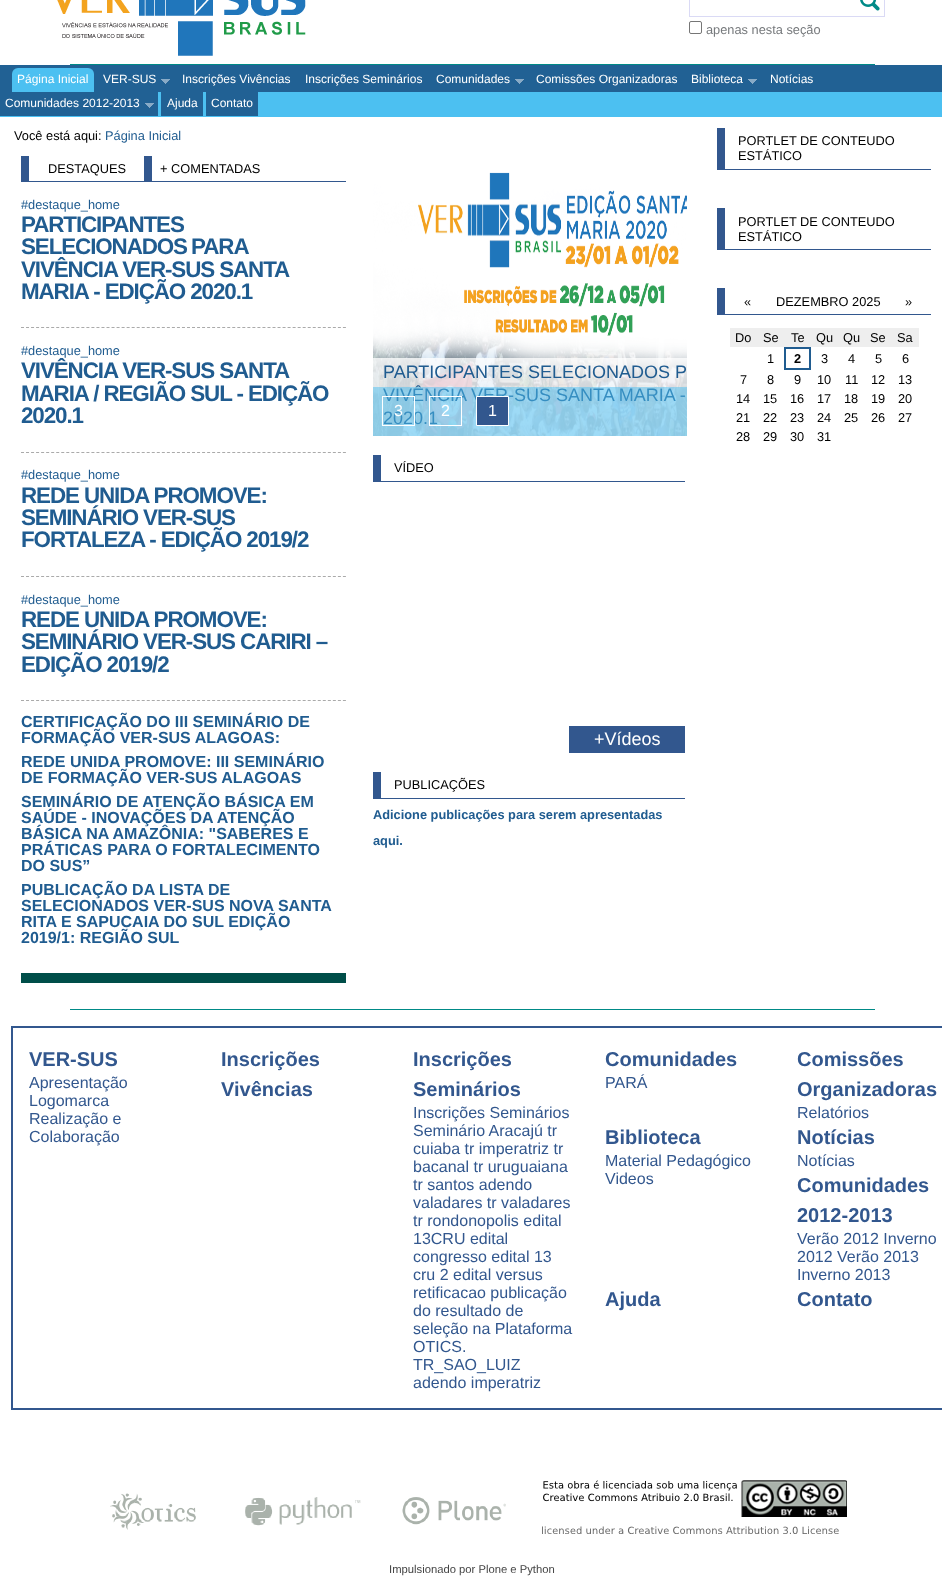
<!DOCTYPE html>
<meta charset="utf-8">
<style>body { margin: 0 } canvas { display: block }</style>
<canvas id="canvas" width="942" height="1586"></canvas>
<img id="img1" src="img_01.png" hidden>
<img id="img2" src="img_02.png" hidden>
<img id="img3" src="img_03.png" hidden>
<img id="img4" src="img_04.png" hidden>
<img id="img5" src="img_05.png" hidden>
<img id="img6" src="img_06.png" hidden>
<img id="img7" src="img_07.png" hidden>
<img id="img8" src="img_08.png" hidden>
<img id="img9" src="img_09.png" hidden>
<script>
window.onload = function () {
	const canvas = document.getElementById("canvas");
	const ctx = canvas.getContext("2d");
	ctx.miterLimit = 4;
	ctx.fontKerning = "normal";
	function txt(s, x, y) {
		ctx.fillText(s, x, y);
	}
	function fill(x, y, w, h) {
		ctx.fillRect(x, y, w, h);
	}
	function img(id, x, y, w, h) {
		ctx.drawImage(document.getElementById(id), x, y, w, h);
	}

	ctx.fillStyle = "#FFFFFF";
	fill(0, 0, 942, 1586);
	img("img1", 57, 0, 249, 56);
	img("img2", 860, 0, 20, 11);
	ctx.strokeStyle = "#DADAF5";
	ctx.strokeRect(689.5, -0.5, 195, 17);
	ctx.beginPath();
	ctx.roundRect(689.5, 21.5, 12, 12, 1.5);
	ctx.strokeStyle = "#767676";
	ctx.stroke();
	ctx.fillStyle = "#008A87";
	fill(70, 64, 805, 1);
	img("img3", 0, 65, 942, 52);
	ctx.fillStyle = "#4CC0F1";
	ctx.beginPath();
	ctx.roundRect(12, 68, 82, 24, [6, 6, 0, 0]);
	ctx.fill();
	img("img4", 161, 79, 9, 5);
	img("img4", 515, 79, 9, 5);
	img("img4", 748, 79, 9, 5);
	ctx.fillStyle = "#216194";
	fill(0, 92, 158, 24);
	img("img4", 145, 103, 9, 5);
	fill(161, 92, 42, 24);
	fill(206, 92, 52, 24);
	ctx.fillStyle = "#32578E";
	fill(21, 181, 325, 1);
	fill(21, 156, 8, 25);
	fill(144, 156, 8, 25);
	ctx.fillStyle = "#004E49";
	fill(21, 973, 325, 10);
	ctx.beginPath();
	ctx.moveTo(21, 327.5);
	ctx.lineTo(346, 327.5);
	ctx.strokeStyle = "#AAAAAA";
	ctx.setLineDash([3, 2.03]);
	ctx.stroke();
	ctx.beginPath();
	ctx.moveTo(21, 452.5);
	ctx.lineTo(346, 452.5);
	ctx.stroke();
	ctx.beginPath();
	ctx.moveTo(21, 576.5);
	ctx.lineTo(346, 576.5);
	ctx.stroke();
	ctx.beginPath();
	ctx.moveTo(21, 700.5);
	ctx.lineTo(346, 700.5);
	ctx.stroke();
	img("img5", 373, 172, 314, 264);
	ctx.fillStyle = "rgba(255, 255, 255, 0.78)";
	fill(373, 358, 314, 78);
	ctx.fillStyle = "#32578E";
	fill(373, 481, 312, 1);
	fill(373, 455, 8, 27);
	fill(569, 726, 116, 27);
	fill(373, 798, 312, 1);
	fill(373, 772, 8, 27);
	fill(717, 169, 214, 1);
	fill(717, 128, 8, 42);
	fill(717, 249, 214, 1);
	fill(717, 208, 8, 42);
	fill(717, 314, 214, 1);
	fill(717, 288, 8, 27);
	ctx.fillStyle = "#EEEEEE";
	fill(730, 328, 189, 19);
	ctx.strokeStyle = "#205C90";
	ctx.lineWidth = 2;
	ctx.setLineDash([]);
	ctx.strokeRect(785, 348, 25, 21);
	ctx.fillStyle = "#008A87";
	fill(70, 1009, 805, 1);
	ctx.strokeStyle = "#32578E";
	ctx.strokeRect(12, 1027, 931, 382);
	img("img6", 110, 1493, 86, 37);
	img("img7", 245, 1497, 116, 29);
	img("img8", 402, 1497, 104, 28);
	img("img9", 542, 1480, 305, 54);
	ctx.font = "12.8px Liberation Sans";
	ctx.fillStyle = "#76797C";
	txt("apenas nesta seção", 706, 34);
	ctx.font = "12px Liberation Sans";
	ctx.fillStyle = "#FFFFFF";
	txt("Página Inicial", 17, 83);
	txt("VER-SUS", 103, 83);
	txt("Inscrições Vivências", 182, 83);
	txt("Inscrições Seminários", 305, 83);
	txt("Comunidades", 436, 83);
	txt("Comissões Organizadoras", 536, 83);
	txt("Biblioteca", 691, 83);
	txt("Notícias", 770, 83);
	txt("Comunidades 2012-2013", 5, 107);
	txt("Ajuda", 167, 107);
	txt("Contato", 211, 107);
	ctx.font = "12.8px Liberation Sans";
	ctx.fillStyle = "#000000";
	txt("Você está aqui:", 14, 140);
	ctx.fillStyle = "#205C90";
	txt("Página Inicial", 105, 140);
	ctx.fillStyle = "#000000";
	txt("DESTAQUES", 48, 173);
	txt("+ COMENTADAS", 160, 173);
	ctx.fillStyle = "#205C90";
	txt("#destaque_home", 21, 209);
	ctx.letterSpacing = "-1.1px";
	ctx.font = "bold 22.4px Liberation Sans";
	txt("PARTICIPANTES", 21, 232);
	ctx.wordSpacing = "-1px";
	txt("SELECIONADOS PARA", 21, 254);
	ctx.wordSpacing = "0px";
	txt("VIVÊNCIA VER-SUS SANTA", 21, 277);
	txt("MARIA - EDIÇÃO 2020.1", 21, 299);
	ctx.letterSpacing = "0px";
	ctx.font = "12.8px Liberation Sans";
	txt("#destaque_home", 21, 355);
	ctx.letterSpacing = "-1.1px";
	ctx.font = "bold 22.4px Liberation Sans";
	txt("VIVÊNCIA VER-SUS SANTA", 21, 378);
	txt("MARIA / REGIÃO SUL - EDIÇÃO", 21, 401);
	txt("2020.1", 21, 423);
	ctx.letterSpacing = "0px";
	ctx.font = "12.8px Liberation Sans";
	txt("#destaque_home", 21, 479);
	ctx.letterSpacing = "-1.1px";
	ctx.font = "bold 22.4px Liberation Sans";
	txt("REDE UNIDA PROMOVE:", 21, 503);
	txt("SEMINÁRIO VER-SUS", 21, 525);
	txt("FORTALEZA - EDIÇÃO 2019/2", 21, 547);
	ctx.letterSpacing = "0px";
	ctx.font = "12.8px Liberation Sans";
	txt("#destaque_home", 21, 604);
	ctx.letterSpacing = "-1.1px";
	ctx.font = "bold 22.4px Liberation Sans";
	txt("REDE UNIDA PROMOVE:", 21, 627);
	txt("SEMINÁRIO VER-SUS CARIRI –", 21, 649);
	txt("EDIÇÃO 2019/2", 21, 672);
	ctx.letterSpacing = "0px";
	ctx.font = "bold 16px Liberation Sans";
	txt("CERTIFICAÇÃO DO III SEMINÁRIO DE", 21, 727);
	txt("FORMAÇÃO VER-SUS ALAGOAS:", 21, 743);
	txt("REDE UNIDA PROMOVE: III SEMINÁRIO", 21, 767);
	txt("DE FORMAÇÃO VER-SUS ALAGOAS", 21, 783);
	txt("SEMINÁRIO DE ATENÇÃO BÁSICA EM", 21, 807);
	txt("SAÚDE - INOVAÇÕES DA ATENÇÃO", 21, 823);
	txt("BÁSICA NA AMAZÔNIA: \"SABERES E", 21, 839);
	txt("PRÁTICAS PARA O FORTALECIMENTO", 21, 855);
	txt("DO SUS”", 21, 871);
	txt("PUBLICAÇÃO DA LISTA DE", 21, 895);
	txt("SELECIONADOS VER-SUS NOVA SANTA", 21, 911);
	txt("RITA E SAPUCAIA DO SUL EDIÇÃO", 21, 927);
	txt("2019/1: REGIÃO SUL", 21, 943);
	ctx.font = "18px Liberation Sans";
	txt("PARTICIPANTES SELECIONADOS P", 383, 378);
	txt("VIVÊNCIA VER-SUS SANTA MARIA -", 383, 401);
	txt("2020.1", 383, 424);
	ctx.fillStyle = "rgba(76, 192, 241, 0.5)";
	fill(373, 387, 314, 49);
	ctx.strokeStyle = "#FFFFFF";
	ctx.lineWidth = 1;
	ctx.strokeRect(382.5, 396.5, 32, 29);
	ctx.font = "16px Liberation Sans";
	ctx.fillStyle = "#FFFFFF";
	txt("3", 394, 416);
	ctx.strokeRect(429.5, 396.5, 32, 29);
	txt("2", 441, 416);
	ctx.fillStyle = "#32578E";
	ctx.beginPath();
	ctx.rect(476.5, 396.5, 32, 29);
	ctx.fill();
	ctx.stroke();
	ctx.fillStyle = "#FFFFFF";
	txt("1", 488, 416);
	ctx.font = "12.8px Liberation Sans";
	ctx.fillStyle = "#000000";
	txt("VÍDEO", 394, 472);
	ctx.font = "18px Liberation Sans";
	ctx.fillStyle = "#FFFFFF";
	txt("+Vídeos", 594, 745);
	ctx.font = "12.8px Liberation Sans";
	ctx.fillStyle = "#000000";
	txt("PUBLICAÇÕES", 394, 789);
	ctx.font = "bold 12.8px Liberation Sans";
	ctx.fillStyle = "#205C90";
	txt("Adicione publicações para serem apresentadas", 373, 819);
	txt("aqui.", 373, 845);
	ctx.font = "12.8px Liberation Sans";
	ctx.fillStyle = "#000000";
	txt("PORTLET DE CONTEUDO", 738, 145);
	txt("ESTÁTICO", 738, 160);
	txt("PORTLET DE CONTEUDO", 738, 226);
	txt("ESTÁTICO", 738, 241);
	txt("«", 744, 306);
	txt("DEZEMBRO 2025", 776, 306);
	txt("»", 905, 306);
	txt("Do", 735, 342);
	txt("Se", 763, 342);
	txt("Te", 791, 342);
	txt("Qu", 816, 342);
	txt("Qu", 843, 342);
	txt("Se", 870, 342);
	txt("Sa", 897, 342);
	txt("1", 767, 363);
	ctx.font = "bold 12.8px Liberation Sans";
	txt("2", 794, 363);
	ctx.font = "12.8px Liberation Sans";
	txt("3", 821, 363);
	txt("4", 848, 363);
	txt("5", 875, 363);
	txt("6", 902, 363);
	txt("7", 740, 384);
	txt("8", 767, 384);
	txt("9", 794, 384);
	txt("10", 817, 384);
	txt("11", 845, 384);
	txt("12", 871, 384);
	txt("13", 898, 384);
	txt("14", 736, 403);
	txt("15", 763, 403);
	txt("16", 790, 403);
	txt("17", 817, 403);
	txt("18", 844, 403);
	txt("19", 871, 403);
	txt("20", 898, 403);
	txt("21", 736, 422);
	txt("22", 763, 422);
	txt("23", 790, 422);
	txt("24", 817, 422);
	txt("25", 844, 422);
	txt("26", 871, 422);
	txt("27", 898, 422);
	txt("28", 736, 441);
	txt("29", 763, 441);
	txt("30", 790, 441);
	txt("31", 817, 441);
	ctx.font = "bold 20px Liberation Sans";
	ctx.fillStyle = "#32578E";
	txt("VER-SUS", 29, 1066);
	ctx.font = "16px Liberation Sans";
	txt("Apresentação", 29, 1088);
	txt("Logomarca", 29, 1106);
	txt("Realização e", 29, 1124);
	txt("Colaboração", 29, 1142);
	ctx.font = "bold 20px Liberation Sans";
	txt("Inscrições", 221, 1066);
	txt("Vivências", 221, 1096);
	txt("Inscrições", 413, 1066);
	txt("Seminários", 413, 1096);
	ctx.font = "16px Liberation Sans";
	txt("Inscrições Seminários", 413, 1118);
	txt("Seminário Aracajú tr", 413, 1136);
	txt("cuiaba tr imperatriz tr", 413, 1154);
	txt("bacanal tr uruguaiana", 413, 1172);
	txt("tr santos adendo", 413, 1190);
	txt("valadares tr valadares", 413, 1208);
	txt("tr rondonopolis edital", 413, 1226);
	txt("13CRU edital", 413, 1244);
	txt("congresso edital 13", 413, 1262);
	txt("cru 2 edital versus", 413, 1280);
	txt("retificacao publicação", 413, 1298);
	txt("do resultado de", 413, 1316);
	txt("seleção na Plataforma", 413, 1334);
	txt("OTICS.", 413, 1352);
	txt("TR_SAO_LUIZ", 413, 1370);
	txt("adendo imperatriz", 413, 1388);
	ctx.font = "bold 20px Liberation Sans";
	txt("Comunidades", 605, 1066);
	ctx.font = "16px Liberation Sans";
	txt("PARÁ", 605, 1088);
	ctx.font = "bold 20px Liberation Sans";
	txt("Comissões", 797, 1066);
	txt("Organizadoras", 797, 1096);
	ctx.font = "16px Liberation Sans";
	txt("Relatórios", 797, 1118);
	ctx.font = "bold 20px Liberation Sans";
	txt("Biblioteca", 605, 1144);
	ctx.font = "16px Liberation Sans";
	txt("Material Pedagógico", 605, 1166);
	txt("Videos", 605, 1184);
	ctx.font = "bold 20px Liberation Sans";
	txt("Notícias", 797, 1144);
	ctx.font = "16px Liberation Sans";
	txt("Notícias", 797, 1166);
	ctx.font = "bold 20px Liberation Sans";
	txt("Comunidades", 797, 1192);
	txt("2012-2013", 797, 1222);
	ctx.font = "16px Liberation Sans";
	txt("Verão 2012 Inverno", 797, 1244);
	txt("2012 Verão 2013", 797, 1262);
	txt("Inverno 2013", 797, 1280);
	ctx.font = "bold 20px Liberation Sans";
	txt("Ajuda", 605, 1306);
	txt("Contato", 797, 1306);
	ctx.font = "11.25px Liberation Sans";
	ctx.fillStyle = "#444444";
	txt("Impulsionado por Plone e Python", 389, 1573);
};
</script>
